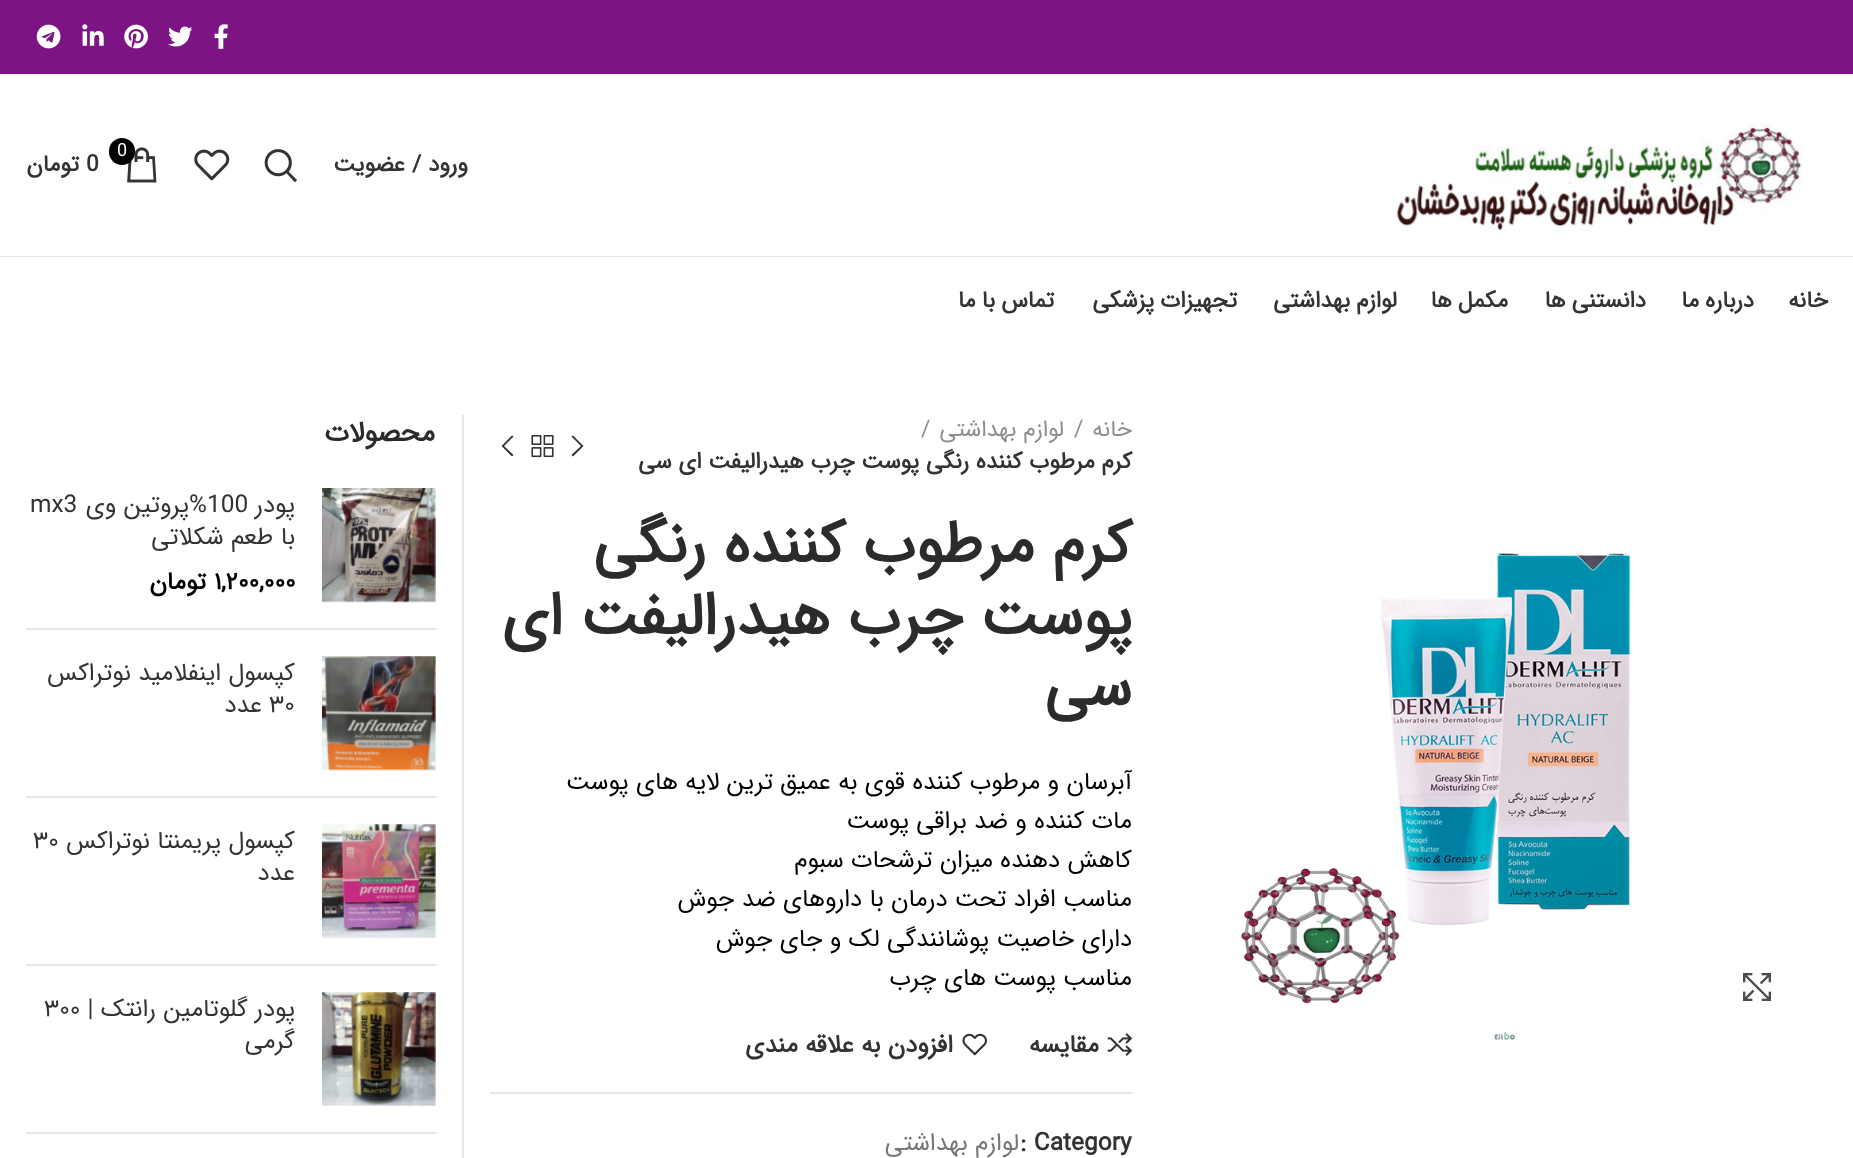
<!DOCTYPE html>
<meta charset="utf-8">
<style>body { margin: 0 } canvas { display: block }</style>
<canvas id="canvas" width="1853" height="1158"></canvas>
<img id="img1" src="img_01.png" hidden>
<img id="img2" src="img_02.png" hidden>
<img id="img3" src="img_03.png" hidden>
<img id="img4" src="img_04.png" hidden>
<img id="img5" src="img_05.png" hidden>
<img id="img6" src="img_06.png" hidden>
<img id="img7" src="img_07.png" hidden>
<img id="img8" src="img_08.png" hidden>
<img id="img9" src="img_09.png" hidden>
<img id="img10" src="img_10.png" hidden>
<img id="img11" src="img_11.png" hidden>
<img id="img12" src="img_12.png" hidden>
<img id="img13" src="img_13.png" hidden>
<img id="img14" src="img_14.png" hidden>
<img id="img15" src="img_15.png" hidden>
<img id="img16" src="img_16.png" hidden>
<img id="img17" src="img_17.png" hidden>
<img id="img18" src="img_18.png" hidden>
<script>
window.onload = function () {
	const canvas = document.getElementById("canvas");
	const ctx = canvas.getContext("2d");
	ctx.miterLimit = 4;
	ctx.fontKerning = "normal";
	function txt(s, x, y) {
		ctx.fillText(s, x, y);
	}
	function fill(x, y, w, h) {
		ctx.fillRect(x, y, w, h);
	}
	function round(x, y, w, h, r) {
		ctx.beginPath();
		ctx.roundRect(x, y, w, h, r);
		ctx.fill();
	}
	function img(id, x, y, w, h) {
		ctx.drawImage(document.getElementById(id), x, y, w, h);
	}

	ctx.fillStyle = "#FFFFFF";
	fill(0, 0, 1853, 1158);
	ctx.fillStyle = "#7C1485";
	fill(0, 0, 1853, 74);
	img("img1", 214, 24, 14, 25);
	img("img2", 168, 26, 25, 21);
	img("img3", 124, 24, 24, 25);
	img("img4", 82, 24, 22, 22);
	img("img5", 36, 24, 25, 25);
	ctx.fillStyle = "#E6E6E6";
	fill(0, 256, 1853, 1);
	img("img6", 1396, 123, 407, 108);
	img("img7", 264, 149, 33, 34);
	img("img8", 194, 149, 36, 32);
	img("img9", 127, 147, 30, 36);
	ctx.fillStyle = "#000000";
	round(109, 138, 26, 27, 13);
	img("img10", 1743, 973, 28, 28);
	img("img11", 1241, 552, 392, 491);
	ctx.fillStyle = "#333333";
	ctx.beginPath();
	ctx.moveTo(573, 435.5);
	ctx.lineTo(583.5, 446);
	ctx.lineTo(573, 456.5);
	ctx.lineTo(571.5, 455);
	ctx.lineTo(581, 446);
	ctx.lineTo(571.5, 436.5);
	ctx.closePath();
	ctx.fill();
	img("img12", 531, 435, 23, 23);
	ctx.beginPath();
	ctx.moveTo(513.5, 436.5);
	ctx.lineTo(504, 446);
	ctx.lineTo(513.5, 455);
	ctx.lineTo(512, 456.5);
	ctx.lineTo(501.5, 446);
	ctx.lineTo(512, 435.5);
	ctx.closePath();
	ctx.fill();
	img("img13", 1107, 1033, 26, 23);
	img("img14", 962, 1033, 25, 23);
	ctx.fillStyle = "#E6E6E6";
	fill(490, 1092, 642, 2);
	fill(462, 415, 2, 743);
	fill(26, 628, 410, 2);
	img("img15", 322, 488, 114, 115);
	fill(26, 796, 410, 2);
	img("img16", 322, 656, 114, 115);
	fill(26, 964, 410, 2);
	img("img17", 322, 824, 114, 115);
	fill(26, 1132, 410, 2);
	img("img18", 322, 992, 114, 114);
	ctx.direction = "rtl";
	ctx.font = "bold 22.75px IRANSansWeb";
	ctx.fillStyle = "#333333";
	txt("ورود / عضویت", 468, 171);
	ctx.direction = "ltr";
	ctx.font = "18px IRANSansWeb";
	ctx.fillStyle = "#FFFFFF";
	txt("0", 117, 156);
	ctx.font = "bold 22.75px IRANSansWeb";
	ctx.fillStyle = "#333333";
	txt("0", 86, 171);
	ctx.direction = "rtl";
	txt("تومان", 79, 171);
	ctx.letterSpacing = "0.3px";
	txt("خانه", 1828, 307);
	ctx.wordSpacing = "-1px";
	txt("درباره ما", 1754, 307);
	txt("دانستنی ها", 1646, 307);
	txt("مکمل ها", 1508, 307);
	txt("لوازم بهداشتی", 1397, 307);
	txt("تجهیزات پزشکی", 1237, 307);
	txt("تماس با ما", 1054, 307);
	ctx.letterSpacing = "0px";
	ctx.wordSpacing = "0px";
	ctx.font = "22.75px IRANSansWeb";
	ctx.fillStyle = "#8E8E8E";
	txt("خانه", 1132, 436);
	ctx.direction = "ltr";
	txt("/", 1074, 436);
	ctx.direction = "rtl";
	txt("لوازم بهداشتی", 1064, 436);
	ctx.direction = "ltr";
	txt("/", 921, 436);
	ctx.direction = "rtl";
	ctx.font = "bold 22.75px IRANSansWeb";
	ctx.fillStyle = "#333333";
	txt("کرم مرطوب کننده رنگی پوست چرب هیدرالیفت ای سی", 1132, 468);
	ctx.font = "bold 59.5px IRANSansWeb";
	ctx.fillStyle = "#2D2A2A";
	txt("کرم مرطوب کننده رنگی", 1132, 562);
	txt("پوست چرب هیدرالیفت ای", 1132, 634);
	txt("سی", 1132, 705);
	ctx.font = "24.5px IRANSansWeb";
	ctx.fillStyle = "#000000";
	txt("آبرسان و مرطوب کننده قوی به عمیق ترین لایه های پوست", 1132, 789);
	txt("مات کننده و ضد براقی پوست", 1132, 828);
	txt("کاهش دهنده میزان ترشحات سبوم", 1132, 867);
	txt("مناسب افراد تحت درمان با داروهای ضد جوش", 1132, 906);
	txt("دارای خاصیت پوشانندگی لک و جای جوش", 1132, 946);
	txt("مناسب پوست های چرب", 1132, 985);
	ctx.font = "bold 24.5px IRANSansWeb";
	ctx.fillStyle = "#333333";
	txt("مقایسه", 1099, 1052);
	txt("افزودن به علاقه مندی", 953, 1052);
	ctx.direction = "ltr";
	txt(": Category", 1020, 1150);
	ctx.direction = "rtl";
	ctx.font = "24.5px IRANSansWeb";
	ctx.fillStyle = "#777777";
	txt("لوازم بهداشتی", 1019, 1150);
	ctx.font = "bold 28px IRANSansWeb";
	ctx.fillStyle = "#2D2A2A";
	txt("محصولات", 435, 441);
	ctx.font = "24.5px IRANSansWeb";
	ctx.fillStyle = "#333333";
	txt("پودر", 295, 512);
	ctx.direction = "ltr";
	txt("100", 207, 512);
	ctx.direction = "rtl";
	txt("%پروتین وی", 207, 512);
	ctx.direction = "ltr";
	txt("mx3", 30, 512);
	ctx.direction = "rtl";
	txt("با طعم شکلاتی", 295, 544);
	ctx.direction = "ltr";
	ctx.font = "bold 24.5px IRANSansWeb";
	ctx.fillStyle = "#000000";
	txt("۱,۲۰۰,۰۰۰", 214, 589);
	ctx.direction = "rtl";
	txt("تومان", 206, 589);
	ctx.font = "24.5px IRANSansWeb";
	ctx.fillStyle = "#333333";
	txt("کپسول اینفلامید نوتراکس", 295, 680);
	ctx.direction = "ltr";
	txt("۳۰", 269, 712);
	ctx.direction = "rtl";
	txt("عدد", 262, 712);
	txt("کپسول پریمنتا نوتراکس", 295, 848);
	ctx.direction = "ltr";
	txt("۳۰", 33, 848);
	ctx.direction = "rtl";
	txt("عدد", 295, 880);
	txt("پودر گلوتامین رانتک |", 295, 1016);
	ctx.direction = "ltr";
	txt("۳۰۰", 44, 1016);
	ctx.direction = "rtl";
	txt("گرمی", 295, 1048);
};
</script>
